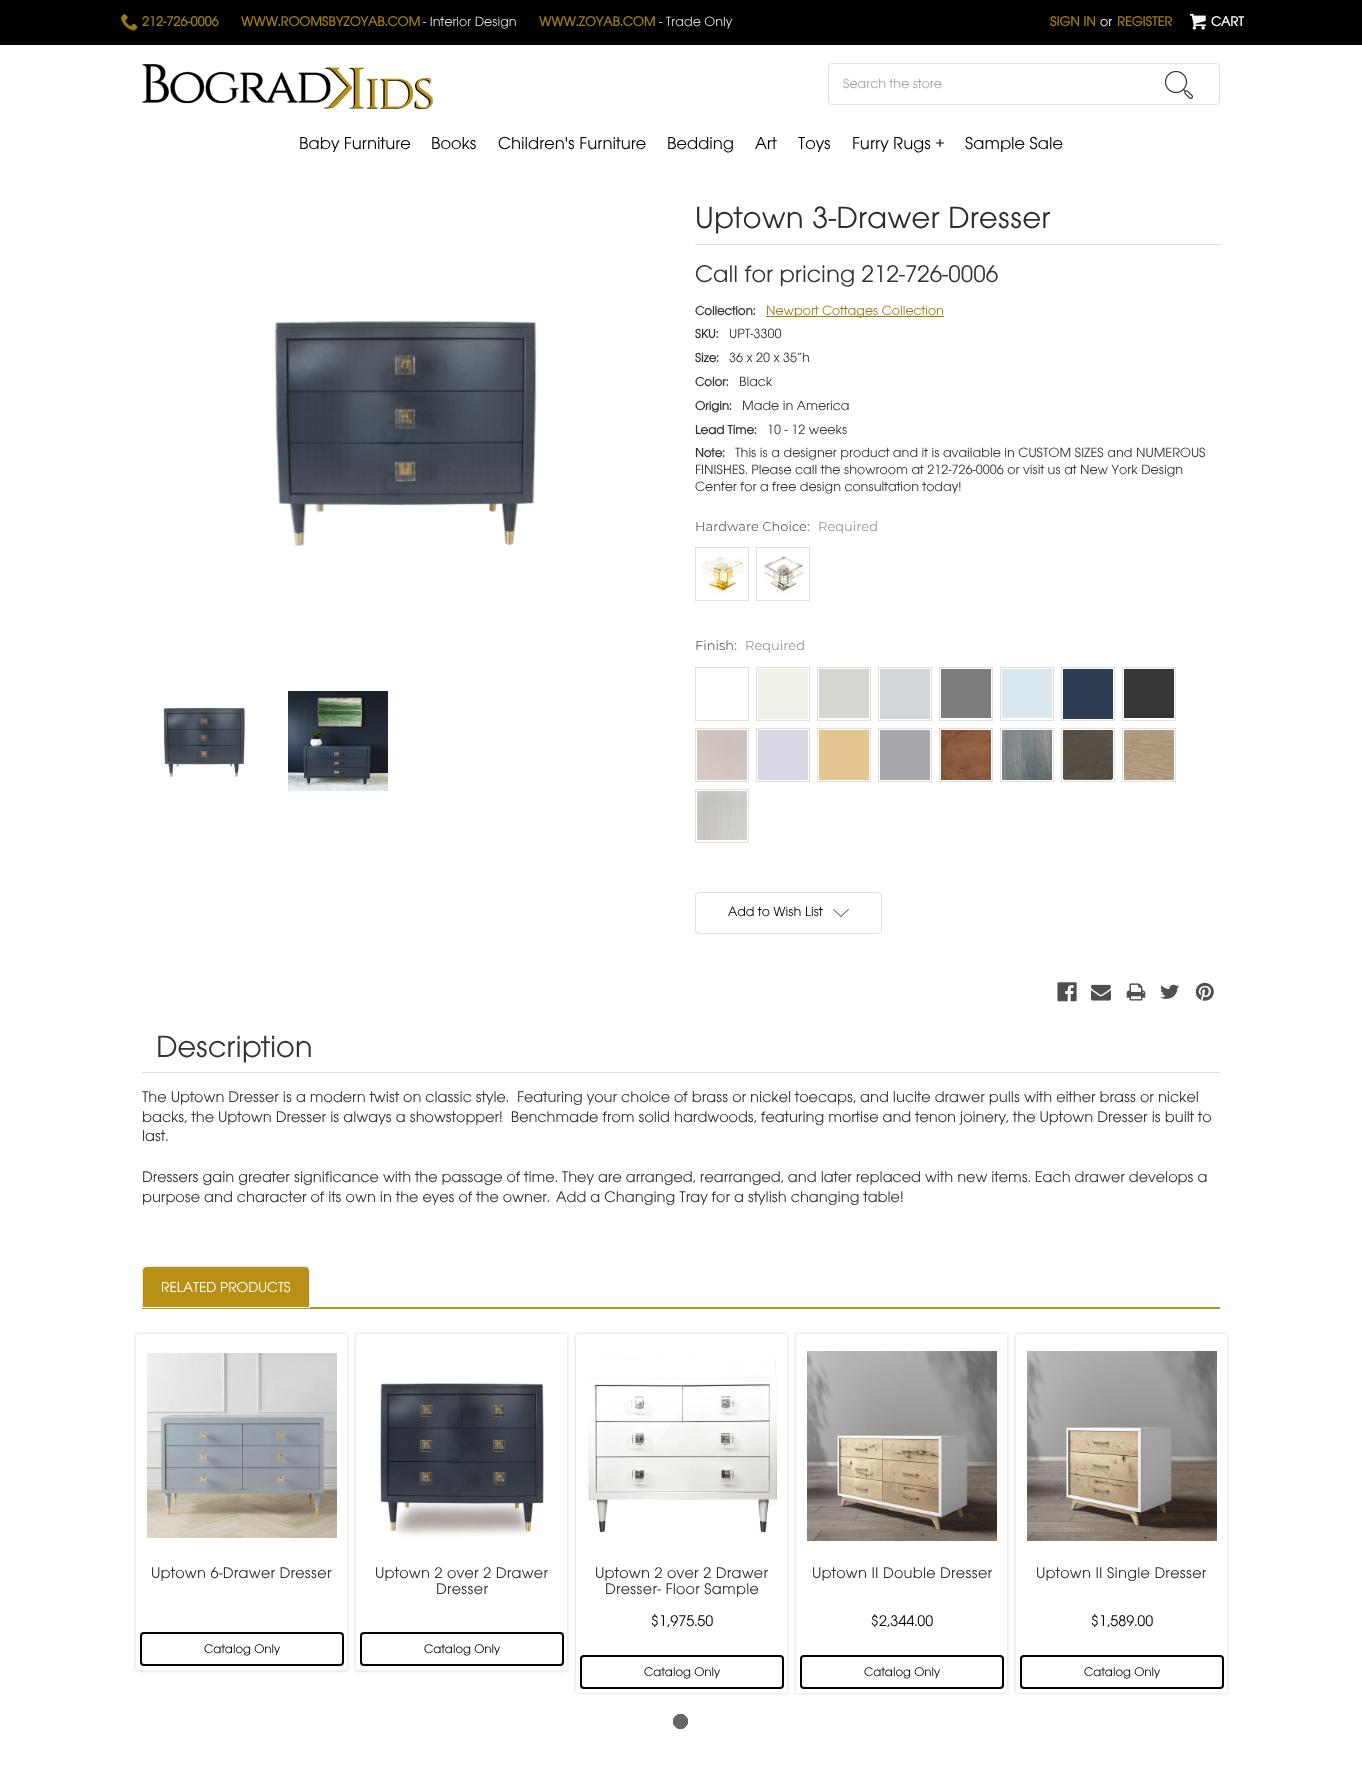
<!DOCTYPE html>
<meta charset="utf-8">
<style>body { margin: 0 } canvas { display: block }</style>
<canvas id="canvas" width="1362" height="1791"></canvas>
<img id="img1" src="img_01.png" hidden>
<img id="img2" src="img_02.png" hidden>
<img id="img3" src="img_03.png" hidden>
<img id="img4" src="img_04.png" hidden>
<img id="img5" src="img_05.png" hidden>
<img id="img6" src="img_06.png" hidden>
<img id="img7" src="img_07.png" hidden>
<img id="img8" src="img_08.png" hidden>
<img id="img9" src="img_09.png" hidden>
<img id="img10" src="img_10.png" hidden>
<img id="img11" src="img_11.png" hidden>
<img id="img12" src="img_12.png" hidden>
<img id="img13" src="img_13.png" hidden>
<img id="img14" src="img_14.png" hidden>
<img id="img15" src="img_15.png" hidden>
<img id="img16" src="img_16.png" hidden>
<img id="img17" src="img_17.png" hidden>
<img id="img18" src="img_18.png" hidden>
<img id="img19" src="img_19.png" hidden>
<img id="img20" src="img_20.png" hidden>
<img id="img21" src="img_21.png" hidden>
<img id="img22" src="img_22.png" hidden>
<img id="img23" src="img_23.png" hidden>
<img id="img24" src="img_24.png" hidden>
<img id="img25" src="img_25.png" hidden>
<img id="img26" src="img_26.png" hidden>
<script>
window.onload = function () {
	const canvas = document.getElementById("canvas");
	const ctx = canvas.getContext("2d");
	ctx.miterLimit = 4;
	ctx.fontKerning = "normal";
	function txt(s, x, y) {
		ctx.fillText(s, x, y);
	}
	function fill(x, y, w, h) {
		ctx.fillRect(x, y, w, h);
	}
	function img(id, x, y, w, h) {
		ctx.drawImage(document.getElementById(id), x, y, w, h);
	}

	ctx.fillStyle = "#FFFFFF";
	fill(0, 0, 1362, 1791);
	ctx.fillStyle = "#000000";
	fill(0, 0, 1362, 45);
	img("img1", 121, 14, 17, 17);
	img("img2", 1190, 13, 16, 17);
	img("img3", 142, 64, 291, 45);
	ctx.beginPath();
	ctx.roundRect(828.5, 63.5, 391, 41, 3.5);
	ctx.strokeStyle = "#DFDFDF";
	ctx.stroke();
	img("img4", 1165, 71, 28, 28);
	img("img5", 274, 320, 263, 226);
	img("img6", 163, 707, 82, 70);
	img("img7", 288, 691, 100, 100);
	ctx.fillStyle = "#DDDDDD";
	fill(695, 244, 525, 1);
	ctx.fillStyle = "#9E7C12";
	fill(766, 316, 178, 1);
	ctx.strokeRect(695.5, 547.5, 53, 53);
	img("img8", 701, 557, 44, 40);
	ctx.strokeRect(756.5, 547.5, 53, 53);
	img("img9", 762, 555, 44, 42);
	ctx.strokeRect(695.5, 667.5, 53, 53);
	ctx.fillStyle = "#FAFAFA";
	fill(697, 718, 1, 1);
	ctx.strokeRect(756.5, 667.5, 53, 53);
	ctx.fillStyle = "#F0EFE8";
	fill(758, 669, 50, 50);
	ctx.strokeRect(817.5, 667.5, 53, 53);
	ctx.fillStyle = "#D4D5CF";
	fill(819, 669, 50, 49);
	ctx.strokeRect(878.5, 667.5, 53, 53);
	ctx.fillStyle = "#D3D6D9";
	fill(880, 669, 50, 50);
	ctx.strokeRect(939.5, 667.5, 53, 53);
	ctx.fillStyle = "#7A7C7D";
	fill(941, 669, 50, 49);
	ctx.strokeRect(1000.5, 667.5, 53, 53);
	ctx.fillStyle = "#D9E7EE";
	fill(1002, 669, 50, 49);
	ctx.strokeRect(1061.5, 667.5, 53, 53);
	ctx.fillStyle = "#2B3C53";
	fill(1063, 669, 50, 50);
	ctx.strokeRect(1122.5, 667.5, 53, 53);
	ctx.fillStyle = "#363636";
	fill(1124, 669, 50, 49);
	ctx.strokeRect(695.5, 728.5, 53, 53);
	img("img10", 697, 730, 50, 50);
	ctx.strokeRect(756.5, 728.5, 53, 53);
	ctx.fillStyle = "#D7D7E6";
	fill(758, 730, 50, 50);
	ctx.strokeRect(817.5, 728.5, 53, 53);
	ctx.fillStyle = "#E4C48F";
	fill(819, 730, 50, 50);
	ctx.strokeRect(878.5, 728.5, 53, 53);
	ctx.fillStyle = "#A8A6AD";
	fill(880, 730, 50, 50);
	ctx.strokeRect(939.5, 728.5, 53, 53);
	img("img11", 941, 730, 50, 50);
	ctx.strokeRect(1000.5, 728.5, 53, 53);
	img("img12", 1002, 730, 50, 50);
	ctx.strokeRect(1061.5, 728.5, 53, 53);
	img("img13", 1063, 730, 50, 50);
	ctx.strokeRect(1122.5, 728.5, 53, 53);
	img("img14", 1124, 730, 50, 50);
	ctx.strokeRect(695.5, 789.5, 53, 53);
	img("img15", 697, 791, 50, 49);
	ctx.beginPath();
	ctx.roundRect(695.5, 892.5, 186, 41, 3.5);
	ctx.stroke();
	img("img16", 833, 909, 16, 8);
	img("img17", 1057, 982, 20, 20);
	img("img18", 1091, 984, 20, 17);
	img("img19", 1126, 983, 20, 18);
	img("img20", 1160, 984, 20, 15);
	img("img21", 1195, 982, 19, 19);
	ctx.fillStyle = "#DDDDDD";
	fill(142, 1072, 1078, 1);
	ctx.fillStyle = "#B89016";
	fill(142, 1307, 1078, 2);
	ctx.fillStyle = "#E8E8E8";
	fill(142, 1266, 168, 1);
	fill(309, 1266, 1, 42);
	ctx.fillStyle = "#FFFFFF";
	fill(142, 1307, 168, 1);
	ctx.fillStyle = "#E8E8E8";
	fill(142, 1266, 1, 42);
	ctx.fillStyle = "#B89016";
	ctx.beginPath();
	ctx.roundRect(143, 1267, 166, 40, [4, 4, 0, 0]);
	ctx.fill();
	ctx.fillStyle = "rgba(0, 0, 0, 0.05)";
	ctx.filter = "blur(2.5px)";
	ctx.beginPath();
	ctx.roundRect(138, 1341, 207, 332, 1);
	ctx.fill();
	ctx.filter = "none";
	ctx.strokeStyle = "rgba(0, 0, 0, 0.04)";
	ctx.strokeRect(134.5, 1332.5, 214, 339);
	ctx.fillStyle = "#FFFFFF";
	ctx.beginPath();
	ctx.roundRect(135.5, 1333.5, 212, 337, 3.5);
	ctx.fill();
	ctx.strokeStyle = "#EEEEEE";
	ctx.stroke();
	img("img22", 147, 1353, 190, 185);
	ctx.beginPath();
	ctx.roundRect(141, 1633, 202, 32, 3);
	ctx.strokeStyle = "#000000";
	ctx.lineWidth = 2;
	ctx.stroke();
	ctx.fillStyle = "rgba(0, 0, 0, 0.05)";
	ctx.filter = "blur(2.5px)";
	ctx.beginPath();
	ctx.roundRect(358, 1341, 207, 332, 1);
	ctx.fill();
	ctx.filter = "none";
	ctx.strokeStyle = "rgba(0, 0, 0, 0.04)";
	ctx.lineWidth = 1;
	ctx.strokeRect(354.5, 1332.5, 214, 339);
	ctx.fillStyle = "#FFFFFF";
	ctx.beginPath();
	ctx.roundRect(355.5, 1333.5, 212, 337, 3.5);
	ctx.fill();
	ctx.strokeStyle = "#EEEEEE";
	ctx.stroke();
	img("img23", 380, 1383, 164, 154);
	ctx.beginPath();
	ctx.roundRect(361, 1633, 202, 32, 3);
	ctx.strokeStyle = "#000000";
	ctx.lineWidth = 2;
	ctx.stroke();
	ctx.strokeStyle = "rgba(0, 0, 0, 0.04)";
	ctx.lineWidth = 1;
	ctx.strokeRect(574.5, 1332.5, 214, 362);
	ctx.beginPath();
	ctx.roundRect(575.5, 1333.5, 212, 360, 3.5);
	ctx.strokeStyle = "#EEEEEE";
	ctx.stroke();
	img("img24", 588, 1358, 189, 175);
	ctx.beginPath();
	ctx.roundRect(581, 1656, 202, 32, 3);
	ctx.strokeStyle = "#000000";
	ctx.lineWidth = 2;
	ctx.stroke();
	ctx.strokeStyle = "rgba(0, 0, 0, 0.04)";
	ctx.lineWidth = 1;
	ctx.strokeRect(794.5, 1332.5, 214, 362);
	ctx.beginPath();
	ctx.roundRect(795.5, 1333.5, 212, 360, 3.5);
	ctx.strokeStyle = "#EEEEEE";
	ctx.stroke();
	img("img25", 807, 1351, 190, 190);
	ctx.beginPath();
	ctx.roundRect(801, 1656, 202, 32, 3);
	ctx.strokeStyle = "#000000";
	ctx.lineWidth = 2;
	ctx.stroke();
	ctx.strokeStyle = "rgba(0, 0, 0, 0.04)";
	ctx.lineWidth = 1;
	ctx.strokeRect(1014.5, 1332.5, 214, 362);
	ctx.beginPath();
	ctx.roundRect(1015.5, 1333.5, 212, 360, 3.5);
	ctx.strokeStyle = "#EEEEEE";
	ctx.stroke();
	img("img26", 1027, 1351, 190, 190);
	ctx.beginPath();
	ctx.roundRect(1021, 1656, 202, 32, 3);
	ctx.strokeStyle = "#000000";
	ctx.lineWidth = 2;
	ctx.stroke();
	ctx.beginPath();
	ctx.arc(680.5, 1721.5, 7, 0, Math.PI * 2);
	ctx.strokeStyle = "#2D2D2D";
	ctx.lineWidth = 1;
	ctx.stroke();
	ctx.fillStyle = "#666666";
	ctx.beginPath();
	ctx.arc(680.5, 1721.5, 7.5, 0, Math.PI * 2);
	ctx.fill();
	ctx.font = "bold 14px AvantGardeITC";
	ctx.fillStyle = "#9E7C12";
	txt("212-726-0006", 142, 26);
	txt("WWW.ROOMSBYZOYAB.COM", 241, 26);
	ctx.font = "14px AvantGardeITC";
	ctx.fillStyle = "#DDDDDD";
	txt("- Interior Design", 423, 26);
	ctx.font = "bold 14px AvantGardeITC";
	ctx.fillStyle = "#9E7C12";
	txt("WWW.ZOYAB.COM", 539, 26);
	ctx.font = "14px AvantGardeITC";
	ctx.fillStyle = "#DDDDDD";
	txt("- Trade Only", 659, 26);
	ctx.font = "bold 14px AvantGardeITC";
	ctx.fillStyle = "#9E7C12";
	txt("SIGN IN", 1050, 26);
	ctx.font = "14px AvantGardeITC";
	ctx.fillStyle = "#FFFFFF";
	txt("or", 1100, 26);
	ctx.font = "bold 14px AvantGardeITC";
	ctx.fillStyle = "#9E7C12";
	txt("REGISTER", 1117, 26);
	ctx.fillStyle = "#FFFFFF";
	txt("CART", 1211, 26);
	ctx.font = "14px AvantGardeITC";
	ctx.fillStyle = "#A5A5A5";
	txt("Search the store", 843, 88);
	ctx.font = "18px AvantGardeITC";
	ctx.fillStyle = "#000000";
	txt("Baby Furniture", 299, 149);
	txt("Books", 431, 149);
	txt("Children's Furniture", 498, 149);
	txt("Bedding", 667, 149);
	txt("Art", 755, 149);
	txt("Toys", 798, 149);
	txt("Furry Rugs +", 852, 149);
	txt("Sample Sale", 965, 149);
	ctx.letterSpacing = "0.25px";
	ctx.font = "32px AvantGardeITC";
	ctx.fillStyle = "#2D2D2D";
	txt("Uptown 3-Drawer Dresser", 695, 228);
	ctx.letterSpacing = "0px";
	ctx.font = "25px AvantGardeITC";
	ctx.fillStyle = "#333333";
	txt("Call for pricing 212-726-0006", 695, 282);
	ctx.font = "bold 13px AvantGardeITC";
	txt("Collection:", 695, 315);
	ctx.font = "14px AvantGardeITC";
	ctx.fillStyle = "#9E7C12";
	txt("Newport Cottages Collection", 766, 315);
	ctx.font = "bold 13px AvantGardeITC";
	ctx.fillStyle = "#333333";
	txt("SKU:", 695, 338);
	ctx.font = "14px AvantGardeITC";
	txt("UPT-3300", 729, 338);
	ctx.font = "bold 13px AvantGardeITC";
	txt("Size:", 695, 362);
	ctx.font = "14px AvantGardeITC";
	txt("36 x 20 x 35”h", 729, 362);
	ctx.font = "bold 13px AvantGardeITC";
	txt("Color:", 695, 386);
	ctx.font = "14px AvantGardeITC";
	txt("Black", 739, 386);
	ctx.font = "bold 13px AvantGardeITC";
	txt("Origin:", 695, 410);
	ctx.font = "14px AvantGardeITC";
	txt("Made in America", 742, 410);
	ctx.font = "bold 13px AvantGardeITC";
	txt("Lead Time:", 695, 434);
	ctx.font = "14px AvantGardeITC";
	txt("10 - 12 weeks", 767, 434);
	ctx.font = "bold 13px AvantGardeITC";
	txt("Note:", 695, 457);
	ctx.font = "14px AvantGardeITC";
	txt("This is a designer product and it is available in CUSTOM SIZES and NUMEROUS", 735, 457);
	txt("FINISHES. Please call the showroom at 212-726-0006 or visit us at New York Design", 695, 474);
	txt("Center for a free design consultation today!", 695, 491);
	ctx.font = "13px Montserrat";
	ctx.fillStyle = "#666666";
	txt("Hardware Choice:", 695, 531);
	ctx.fillStyle = "#989898";
	txt("Required", 818, 531);
	ctx.fillStyle = "#666666";
	txt("Finish:", 695, 650);
	ctx.fillStyle = "#989898";
	txt("Required", 745, 650);
	ctx.font = "14px AvantGardeITC";
	ctx.fillStyle = "#000000";
	txt("Add to Wish List", 728, 916);
	ctx.font = "32px AvantGardeITC";
	ctx.fillStyle = "#333333";
	txt("Description", 156, 1057);
	ctx.font = "16px AvantGardeITC";
	txt("The Uptown Dresser is a modern twist on classic style.  Featuring your choice of brass or nickel toecaps, and lucite drawer pulls with either brass or nickel", 142, 1102);
	txt("backs, the Uptown Dresser is always a showstopper!  Benchmade from solid hardwoods, featuring mortise and tenon joinery, the Uptown Dresser is built to", 142, 1122);
	txt("last.", 142, 1141);
	txt("Dressers gain greater significance with the passage of time. They are arranged, rearranged, and later replaced with new items. Each drawer develops a", 142, 1182);
	txt("purpose and character of its own in the eyes of the owner.", 142, 1202);
	txt("Add a Changing Tray for a stylish changing table!", 556, 1202);
	ctx.font = "15px AvantGardeITC";
	ctx.fillStyle = "#FFFFFF";
	txt("RELATED PRODUCTS", 161, 1292);
	ctx.letterSpacing = "0.25px";
	ctx.font = "16px AvantGardeITC";
	ctx.fillStyle = "#2D2D2D";
	txt("Uptown 6-Drawer Dresser", 151, 1578);
	ctx.letterSpacing = "0px";
	ctx.font = "13px AvantGardeITC";
	ctx.fillStyle = "#000000";
	txt("Catalog Only", 204, 1653);
	ctx.letterSpacing = "0.25px";
	ctx.font = "16px AvantGardeITC";
	ctx.fillStyle = "#2D2D2D";
	txt("Uptown 2 over 2 Drawer", 375, 1578);
	txt("Dresser", 436, 1594);
	ctx.letterSpacing = "0px";
	ctx.font = "13px AvantGardeITC";
	ctx.fillStyle = "#000000";
	txt("Catalog Only", 424, 1653);
	ctx.letterSpacing = "0.25px";
	ctx.font = "16px AvantGardeITC";
	ctx.fillStyle = "#2D2D2D";
	txt("Uptown 2 over 2 Drawer", 595, 1578);
	txt("Dresser- Floor Sample", 605, 1594);
	ctx.letterSpacing = "0px";
	ctx.fillStyle = "#000000";
	txt("$1,975.50", 651, 1626);
	ctx.font = "13px AvantGardeITC";
	txt("Catalog Only", 644, 1676);
	ctx.letterSpacing = "0.25px";
	ctx.font = "16px AvantGardeITC";
	ctx.fillStyle = "#2D2D2D";
	txt("Uptown II Double Dresser", 812, 1578);
	ctx.letterSpacing = "0px";
	ctx.fillStyle = "#000000";
	txt("$2,344.00", 871, 1626);
	ctx.font = "13px AvantGardeITC";
	txt("Catalog Only", 864, 1676);
	ctx.letterSpacing = "0.25px";
	ctx.font = "16px AvantGardeITC";
	ctx.fillStyle = "#2D2D2D";
	txt("Uptown II Single Dresser", 1036, 1578);
	ctx.letterSpacing = "0px";
	ctx.fillStyle = "#000000";
	txt("$1,589.00", 1091, 1626);
	ctx.font = "13px AvantGardeITC";
	txt("Catalog Only", 1084, 1676);
};
</script>
